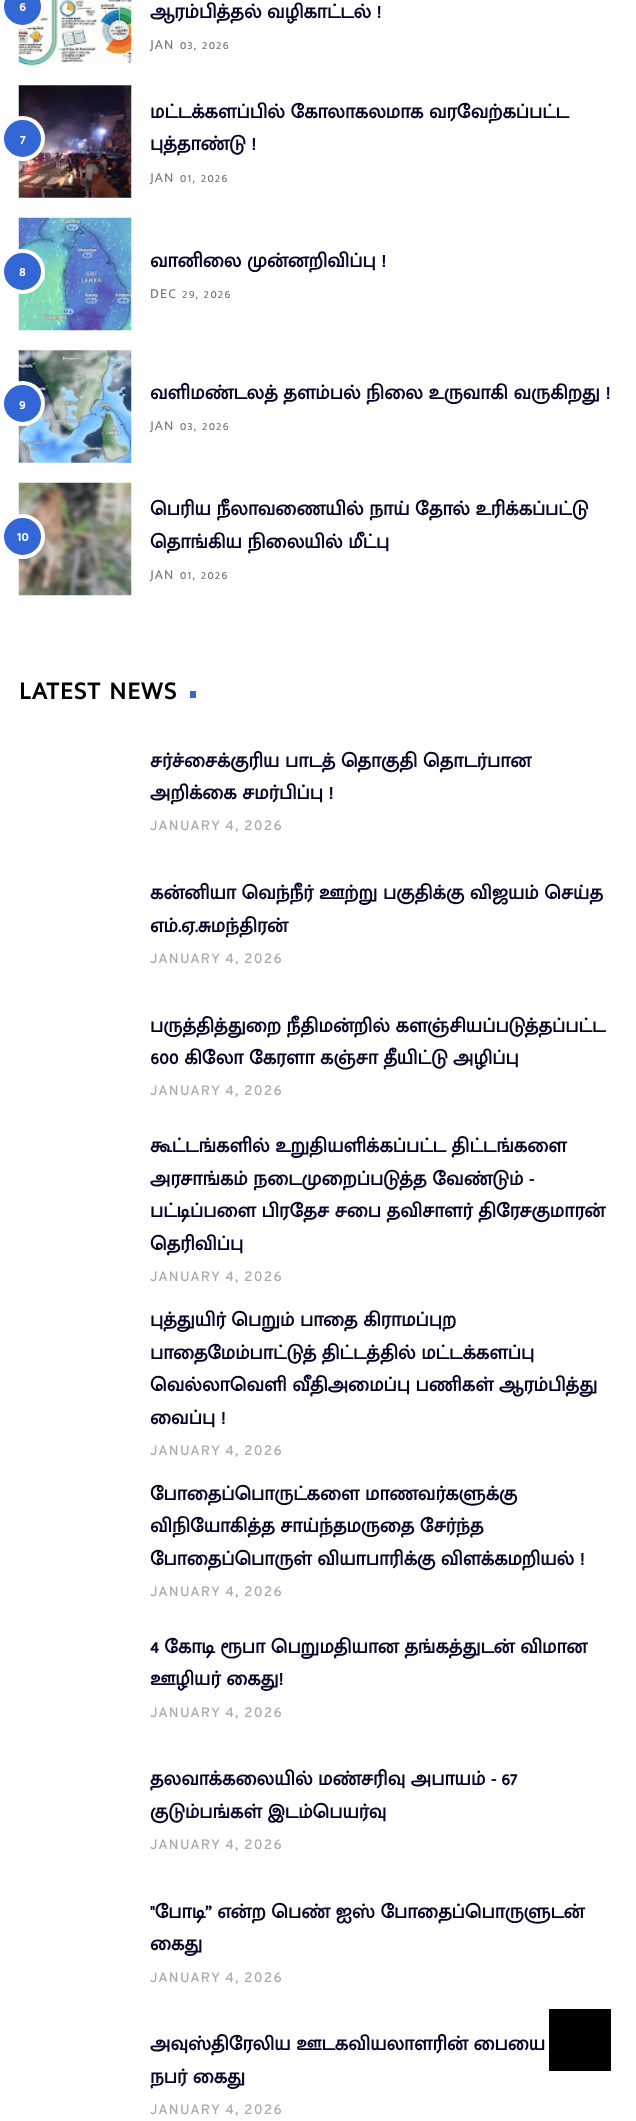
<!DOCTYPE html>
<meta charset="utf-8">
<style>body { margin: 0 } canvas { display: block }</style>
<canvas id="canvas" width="636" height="2121"></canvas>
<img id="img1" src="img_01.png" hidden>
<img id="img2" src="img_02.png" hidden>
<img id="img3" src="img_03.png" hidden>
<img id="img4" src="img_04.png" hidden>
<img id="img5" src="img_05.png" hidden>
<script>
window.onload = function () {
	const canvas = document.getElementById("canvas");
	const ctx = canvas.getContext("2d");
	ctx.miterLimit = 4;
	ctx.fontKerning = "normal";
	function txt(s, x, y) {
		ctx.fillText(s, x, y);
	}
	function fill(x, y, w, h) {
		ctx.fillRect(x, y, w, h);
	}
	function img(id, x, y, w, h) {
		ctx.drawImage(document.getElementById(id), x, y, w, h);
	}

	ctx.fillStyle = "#FFFFFF";
	fill(0, 0, 636, 2121);
	img("img1", 18, 0, 114, 66);
	ctx.fillStyle = "#3367D6";
	ctx.beginPath();
	ctx.arc(22.5, 6.5, 20.5, 0, Math.PI * 2);
	ctx.fill();
	ctx.strokeStyle = "#FFFFFF";
	ctx.lineWidth = 4;
	ctx.stroke();
	img("img2", 18, 85, 114, 113);
	ctx.beginPath();
	ctx.arc(22.5, 138.5, 20.5, 0, Math.PI * 2);
	ctx.fill();
	ctx.stroke();
	img("img3", 18, 217, 114, 114);
	ctx.beginPath();
	ctx.arc(22.5, 271.5, 20.5, 0, Math.PI * 2);
	ctx.fill();
	ctx.stroke();
	img("img4", 18, 350, 114, 113);
	ctx.beginPath();
	ctx.arc(22.5, 403.5, 20.5, 0, Math.PI * 2);
	ctx.fill();
	ctx.stroke();
	img("img5", 18, 482, 114, 114);
	ctx.beginPath();
	ctx.arc(22.5, 536.5, 20.5, 0, Math.PI * 2);
	ctx.fill();
	ctx.stroke();
	fill(190, 691, 6, 7);
	ctx.fillStyle = "#000000";
	fill(549, 2009, 62, 62);
	ctx.beginPath();
	ctx.moveTo(580, 2041);
	ctx.lineTo(580.5, 2040.5);
	ctx.lineTo(581, 2041);
	ctx.lineWidth = 0.1;
	ctx.stroke();
	ctx.font = "bold 20px Mukta Malar";
	ctx.fillStyle = "#060429";
	txt("ஆரம்பித்தல் வழிகாட்டல் !", 150, 18);
	ctx.letterSpacing = "1.25px";
	ctx.font = "13.75px Mukta Malar";
	ctx.fillStyle = "#777777";
	txt("JAN 03, 2026", 150, 49);
	ctx.letterSpacing = "0px";
	ctx.font = "bold 15px Mukta Malar";
	ctx.fillStyle = "#FFFFFF";
	txt("6", 19, 11);
	ctx.font = "bold 20px Mukta Malar";
	ctx.fillStyle = "#060429";
	txt("மட்டக்களப்பில் கோலாகலமாக வரவேற்கப்பட்ட", 150, 118);
	txt("புத்தாண்டு !", 150, 150);
	ctx.letterSpacing = "1.25px";
	ctx.font = "13.75px Mukta Malar";
	ctx.fillStyle = "#777777";
	txt("JAN 01, 2026", 150, 182);
	ctx.letterSpacing = "0px";
	ctx.font = "bold 15px Mukta Malar";
	ctx.fillStyle = "#FFFFFF";
	txt("7", 20, 144);
	ctx.font = "bold 20px Mukta Malar";
	ctx.fillStyle = "#060429";
	txt("வானிலை முன்னறிவிப்பு !", 150, 267);
	ctx.letterSpacing = "1.25px";
	ctx.font = "13.75px Mukta Malar";
	ctx.fillStyle = "#777777";
	txt("DEC 29, 2026", 150, 298);
	ctx.letterSpacing = "0px";
	ctx.font = "bold 15px Mukta Malar";
	ctx.fillStyle = "#FFFFFF";
	txt("8", 19, 276);
	ctx.font = "bold 20px Mukta Malar";
	ctx.fillStyle = "#060429";
	txt("வளிமண்டலத் தளம்பல் நிலை உருவாகி வருகிறது !", 150, 399);
	ctx.letterSpacing = "1.25px";
	ctx.font = "13.75px Mukta Malar";
	ctx.fillStyle = "#777777";
	txt("JAN 03, 2026", 150, 430);
	ctx.letterSpacing = "0px";
	ctx.font = "bold 15px Mukta Malar";
	ctx.fillStyle = "#FFFFFF";
	txt("9", 19, 409);
	ctx.font = "bold 20px Mukta Malar";
	ctx.fillStyle = "#060429";
	txt("பெரிய நீலாவணையில் நாய் தோல் உரிக்கப்பட்டு", 150, 515);
	txt("தொங்கிய நிலையில் மீட்பு", 150, 548);
	ctx.letterSpacing = "1.25px";
	ctx.font = "13.75px Mukta Malar";
	ctx.fillStyle = "#777777";
	txt("JAN 01, 2026", 150, 579);
	ctx.letterSpacing = "0px";
	ctx.font = "bold 15px Mukta Malar";
	ctx.fillStyle = "#FFFFFF";
	txt("10", 17, 541);
	ctx.letterSpacing = "1.25px";
	ctx.font = "bold 25px Mukta Malar";
	ctx.fillStyle = "#000000";
	txt("LATEST NEWS", 19, 699);
	ctx.letterSpacing = "0px";
	ctx.font = "bold 20px Mukta Malar";
	ctx.fillStyle = "#060429";
	txt("சர்ச்சைக்குரிய பாடத் தொகுதி தொடர்பான", 150, 767);
	txt("அறிக்கை சமர்பிப்பு !", 150, 799);
	ctx.letterSpacing = "1.25px";
	ctx.font = "500 13.75px Overpass";
	ctx.fillStyle = "#A8AAB2";
	txt("JANUARY 4, 2026", 150, 830);
	ctx.letterSpacing = "0px";
	ctx.font = "bold 20px Mukta Malar";
	ctx.fillStyle = "#060429";
	txt("கன்னியா வெந்நீர் ஊற்று பகுதிக்கு விஜயம் செய்த", 150, 899);
	txt("எம்.ஏ.சுமந்திரன்", 150, 932);
	ctx.letterSpacing = "1.25px";
	ctx.font = "500 13.75px Overpass";
	ctx.fillStyle = "#A8AAB2";
	txt("JANUARY 4, 2026", 150, 963);
	ctx.letterSpacing = "0px";
	ctx.font = "bold 20px Mukta Malar";
	ctx.fillStyle = "#060429";
	txt("பருத்தித்துறை நீதிமன்றில் களஞ்சியப்படுத்தப்பட்ட", 150, 1032);
	txt("600 கிலோ கேரளா கஞ்சா தீயிட்டு அழிப்பு", 150, 1064);
	ctx.letterSpacing = "1.25px";
	ctx.font = "500 13.75px Overpass";
	ctx.fillStyle = "#A8AAB2";
	txt("JANUARY 4, 2026", 150, 1095);
	ctx.letterSpacing = "0px";
	ctx.font = "bold 20px Mukta Malar";
	ctx.fillStyle = "#060429";
	txt("கூட்டங்களில் உறுதியளிக்கப்பட்ட திட்டங்களை", 150, 1152);
	txt("அரசாங்கம் நடைமுறைப்படுத்த வேண்டும் -", 150, 1185);
	txt("பட்டிப்பளை பிரதேச சபை தவிசாளர் திரேசகுமாரன்", 150, 1217);
	txt("தெரிவிப்பு", 150, 1250);
	ctx.letterSpacing = "1.25px";
	ctx.font = "500 13.75px Overpass";
	ctx.fillStyle = "#A8AAB2";
	txt("JANUARY 4, 2026", 150, 1281);
	ctx.letterSpacing = "0px";
	ctx.font = "bold 20px Mukta Malar";
	ctx.fillStyle = "#060429";
	txt("புத்துயிர் பெறும் பாதை கிராமப்புற", 150, 1326);
	txt("பாதைமேம்பாட்டுத் திட்டத்தில் மட்டக்களப்பு", 150, 1359);
	txt("வெல்லாவெளி வீதிஅமைப்பு பணிகள் ஆரம்பித்து", 150, 1391);
	txt("வைப்பு !", 150, 1424);
	ctx.letterSpacing = "1.25px";
	ctx.font = "500 13.75px Overpass";
	ctx.fillStyle = "#A8AAB2";
	txt("JANUARY 4, 2026", 150, 1455);
	ctx.letterSpacing = "0px";
	ctx.font = "bold 20px Mukta Malar";
	ctx.fillStyle = "#060429";
	txt("போதைப்பொருட்களை மாணவர்களுக்கு", 150, 1500);
	txt("விநியோகித்த சாய்ந்தமருதை சேர்ந்த", 150, 1532);
	txt("போதைப்பொருள் வியாபாரிக்கு விளக்கமறியல் !", 150, 1565);
	ctx.letterSpacing = "1.25px";
	ctx.font = "500 13.75px Overpass";
	ctx.fillStyle = "#A8AAB2";
	txt("JANUARY 4, 2026", 150, 1596);
	ctx.letterSpacing = "0px";
	ctx.font = "bold 20px Mukta Malar";
	ctx.fillStyle = "#060429";
	txt("4 கோடி ரூபா பெறுமதியான தங்கத்துடன் விமான", 150, 1653);
	txt("ஊழியர் கைது!", 150, 1685);
	ctx.letterSpacing = "1.25px";
	ctx.font = "500 13.75px Overpass";
	ctx.fillStyle = "#A8AAB2";
	txt("JANUARY 4, 2026", 150, 1717);
	ctx.letterSpacing = "0px";
	ctx.font = "bold 20px Mukta Malar";
	ctx.fillStyle = "#060429";
	txt("தலவாக்கலையில் மண்சரிவு அபாயம் -", 150, 1785);
	txt("67", 501, 1785);
	txt("குடும்பங்கள் இடம்பெயர்வு", 150, 1818);
	ctx.letterSpacing = "1.25px";
	ctx.font = "500 13.75px Overpass";
	ctx.fillStyle = "#A8AAB2";
	txt("JANUARY 4, 2026", 150, 1849);
	ctx.letterSpacing = "0px";
	ctx.font = "bold 20px Mukta Malar";
	ctx.fillStyle = "#060429";
	txt("\"போடி’’ என்ற பெண் ஐஸ் போதைப்பொருளுடன்", 150, 1918);
	txt("கைது", 150, 1950);
	ctx.letterSpacing = "1.25px";
	ctx.font = "500 13.75px Overpass";
	ctx.fillStyle = "#A8AAB2";
	txt("JANUARY 4, 2026", 150, 1982);
	ctx.letterSpacing = "0px";
	ctx.font = "bold 20px Mukta Malar";
	ctx.fillStyle = "#060429";
	txt("அவுஸ்திரேலிய ஊடகவியலாளரின் பையை", 150, 2050);
	txt("நபர் கைது", 150, 2083);
	ctx.letterSpacing = "1.25px";
	ctx.font = "500 13.75px Overpass";
	ctx.fillStyle = "#A8AAB2";
	txt("JANUARY 4, 2026", 150, 2114);
};
</script>
